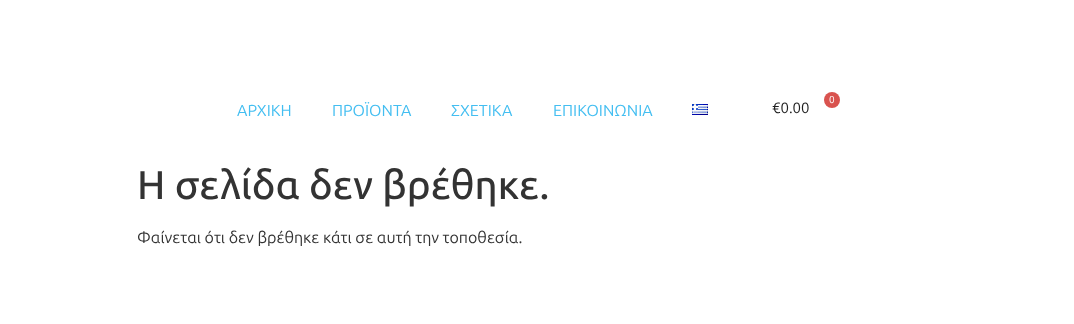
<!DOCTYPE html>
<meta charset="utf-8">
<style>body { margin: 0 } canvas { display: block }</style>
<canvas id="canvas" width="1074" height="324"></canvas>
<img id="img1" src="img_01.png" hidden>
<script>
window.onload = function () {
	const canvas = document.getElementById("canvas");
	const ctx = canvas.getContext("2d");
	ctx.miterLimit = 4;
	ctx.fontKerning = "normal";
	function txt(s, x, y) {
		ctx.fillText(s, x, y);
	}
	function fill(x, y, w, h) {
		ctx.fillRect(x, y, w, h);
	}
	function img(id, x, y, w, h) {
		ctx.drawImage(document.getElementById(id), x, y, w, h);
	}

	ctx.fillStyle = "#FFFFFF";
	fill(0, 0, 1074, 324);
	img("img1", 692, 104, 16, 11);
	ctx.fillStyle = "#D9534F";
	ctx.beginPath();
	ctx.arc(832, 100, 8, 0, Math.PI * 2);
	ctx.fill();
	ctx.font = "16px Ubuntu";
	ctx.fillStyle = "#43BEF1";
	txt("ΑΡΧΙΚΗ", 237, 116);
	txt("ΠΡΟΪΟΝΤΑ", 332, 116);
	txt("ΣΧΕΤΙΚΑ", 451, 116);
	txt("ΕΠΙΚΟΙΝΩΝΙΑ", 553, 116);
	ctx.font = "10px Ubuntu";
	ctx.fillStyle = "#FFFFFF";
	txt("0", 829, 103);
	ctx.font = "15px Ubuntu";
	ctx.fillStyle = "#1F1F1F";
	txt("€0.00", 772, 113);
	ctx.font = "500 40px Ubuntu";
	ctx.fillStyle = "#333333";
	txt("Η σελίδα δεν βρέθηκε.", 137, 199);
	ctx.font = "16px Ubuntu";
	txt("Φαίνεται ότι δεν βρέθηκε κάτι σε αυτή την τοποθεσία.", 137, 243);
};
</script>
